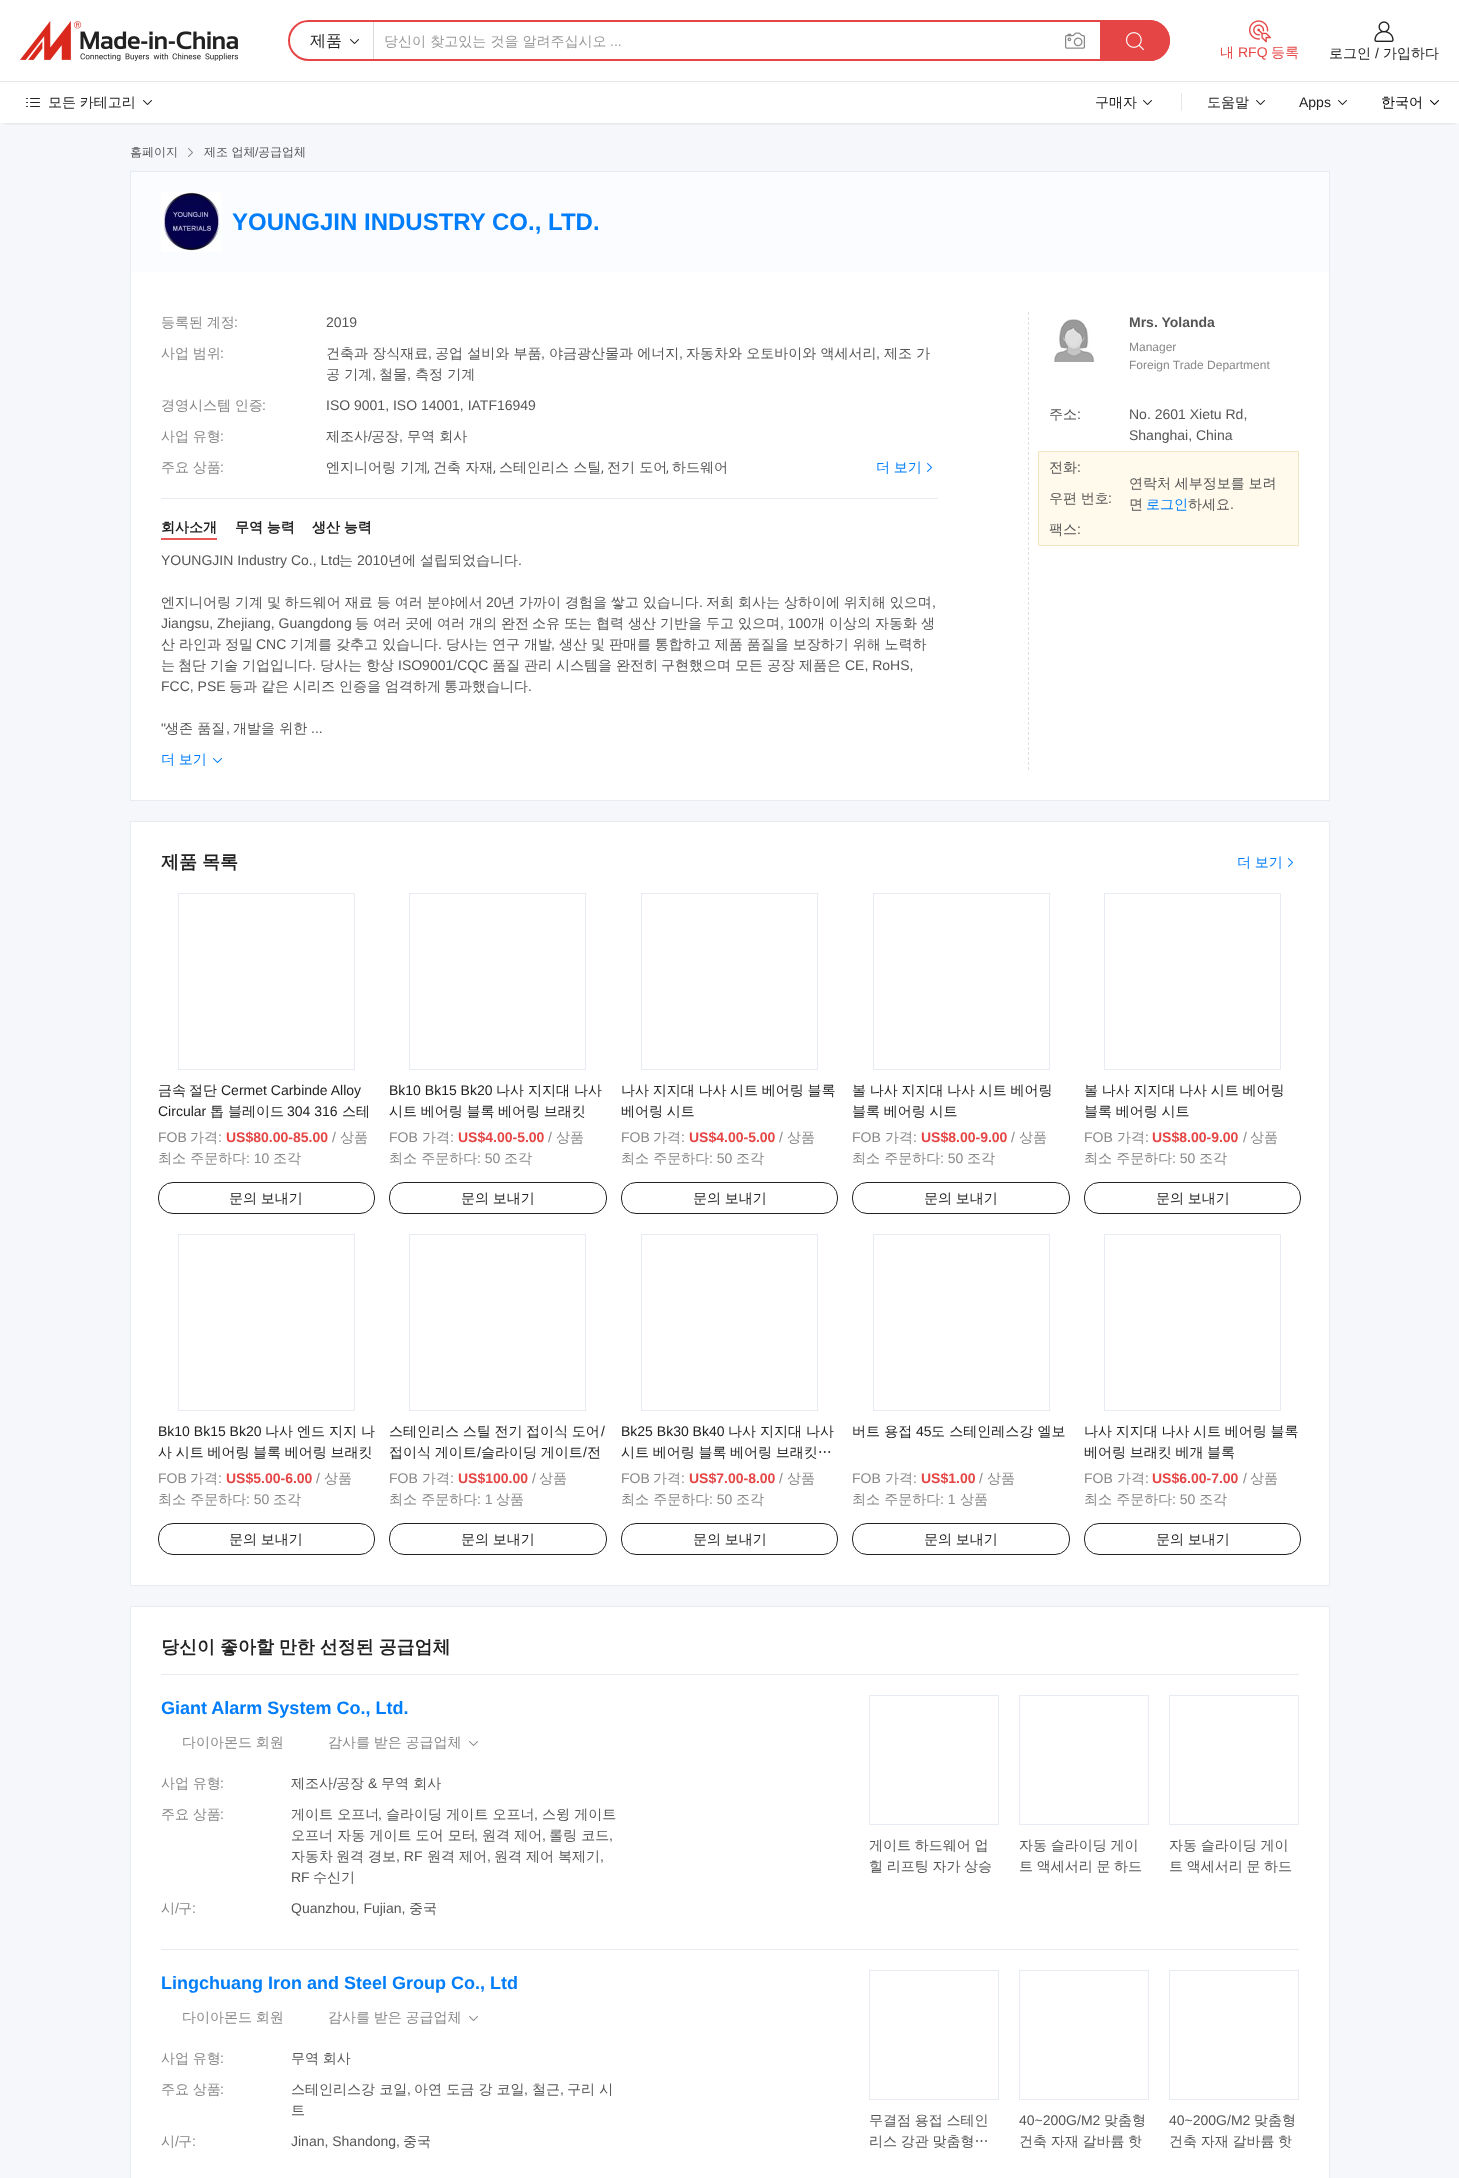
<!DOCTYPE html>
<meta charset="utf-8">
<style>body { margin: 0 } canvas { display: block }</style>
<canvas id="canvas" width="1459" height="2178"></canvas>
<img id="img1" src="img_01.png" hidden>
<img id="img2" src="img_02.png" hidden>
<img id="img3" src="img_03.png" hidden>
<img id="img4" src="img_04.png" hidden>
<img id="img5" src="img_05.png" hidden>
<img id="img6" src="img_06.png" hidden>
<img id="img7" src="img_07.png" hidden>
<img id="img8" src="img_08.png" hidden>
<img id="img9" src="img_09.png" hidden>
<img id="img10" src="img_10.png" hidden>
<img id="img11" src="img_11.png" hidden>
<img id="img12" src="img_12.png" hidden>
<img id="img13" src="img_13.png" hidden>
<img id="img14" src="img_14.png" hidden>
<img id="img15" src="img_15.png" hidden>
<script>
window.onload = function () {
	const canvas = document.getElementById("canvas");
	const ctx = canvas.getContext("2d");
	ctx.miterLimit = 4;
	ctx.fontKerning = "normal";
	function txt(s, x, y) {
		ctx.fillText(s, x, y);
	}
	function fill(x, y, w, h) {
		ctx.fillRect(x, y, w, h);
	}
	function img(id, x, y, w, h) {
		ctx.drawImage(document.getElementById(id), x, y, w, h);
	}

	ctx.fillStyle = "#FFFFFF";
	fill(0, 0, 1459, 2178);
	ctx.fillStyle = "#F5F7FA";
	fill(0, 123, 1459, 2055);
	ctx.save();
	ctx.beginPath();
	ctx.rect(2, 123, 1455, 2);
	ctx.clip();
	ctx.fillStyle = "rgba(0, 0, 0, 0.12)";
	ctx.filter = "blur(2.5px)";
	ctx.beginPath();
	ctx.rect(3, 6, 1453, 117);
	ctx.fill();
	ctx.filter = "none";
	ctx.restore();
	img("img1", 20, 21, 218, 40);
	ctx.beginPath();
	ctx.roundRect(289, 21, 880, 39, 19.5);
	ctx.strokeStyle = "#E64545";
	ctx.lineWidth = 2;
	ctx.stroke();
	ctx.fillStyle = "#DADADA";
	fill(373, 22, 1, 37);
	img("img2", 350, 39, 9, 5);
	img("img3", 1065, 32, 20, 17);
	ctx.fillStyle = "#E64545";
	ctx.beginPath();
	ctx.roundRect(1100, 20, 70, 41, [0, 20.5, 20.5, 0]);
	ctx.fill();
	img("img4", 1126, 32, 18, 19);
	img("img5", 1249, 20, 22, 23);
	img("img6", 1374, 21, 20, 21);
	ctx.fillStyle = "#E6E7EB";
	fill(0, 81, 1459, 1);
	img("img7", 26, 98, 14, 9);
	img("img2", 143, 100, 9, 5);
	img("img2", 1143, 100, 9, 5);
	fill(1181, 93, 1, 18);
	img("img2", 1256, 100, 9, 5);
	img("img2", 1338, 100, 9, 5);
	img("img8", 1430, 100, 9, 5);
	img("img9", 188, 148, 5, 9);
	ctx.fillStyle = "#FFFFFF";
	fill(131, 272, 1198, 528);
	ctx.strokeStyle = "#E6ECF2";
	ctx.lineWidth = 1;
	ctx.strokeRect(130.5, 171.5, 1199, 629);
	ctx.fillStyle = "#FAFCFF";
	fill(131, 172, 1198, 100);
	img("img10", 161, 192, 61, 60);
	ctx.beginPath();
	ctx.moveTo(1028.5, 312);
	ctx.lineTo(1028.5, 770);
	ctx.strokeStyle = "#DAE0E6";
	ctx.setLineDash([3, 2]);
	ctx.stroke();
	img("img11", 927, 463, 5, 9);
	ctx.fillStyle = "#E6ECF2";
	fill(161, 498, 777, 1);
	ctx.fillStyle = "#EB5757";
	fill(161, 538, 56, 2);
	img("img12", 213, 758, 9, 5);
	img("img13", 1054, 319, 41, 43);
	ctx.fillStyle = "#FFFAEB";
	ctx.beginPath();
	ctx.rect(1038.5, 451.5, 260, 94);
	ctx.fill();
	ctx.strokeStyle = "#F2E6C2";
	ctx.setLineDash([]);
	ctx.stroke();
	ctx.fillStyle = "#FFFFFF";
	ctx.beginPath();
	ctx.rect(130.5, 821.5, 1199, 764);
	ctx.fill();
	ctx.strokeStyle = "#E6ECF2";
	ctx.stroke();
	img("img14", 1288, 858, 5, 9);
	ctx.strokeRect(178.5, 893.5, 176, 176);
	ctx.beginPath();
	ctx.roundRect(158.5, 1182.5, 216, 31, 14.5);
	ctx.strokeStyle = "#222222";
	ctx.stroke();
	ctx.strokeStyle = "#E6ECF2";
	ctx.strokeRect(409.5, 893.5, 176, 176);
	ctx.beginPath();
	ctx.roundRect(389.5, 1182.5, 217, 31, 14.5);
	ctx.strokeStyle = "#222222";
	ctx.stroke();
	ctx.strokeStyle = "#E6ECF2";
	ctx.strokeRect(641.5, 893.5, 176, 176);
	ctx.beginPath();
	ctx.roundRect(621.5, 1182.5, 216, 31, 14.5);
	ctx.strokeStyle = "#222222";
	ctx.stroke();
	ctx.strokeStyle = "#E6ECF2";
	ctx.strokeRect(873.5, 893.5, 176, 176);
	ctx.beginPath();
	ctx.roundRect(852.5, 1182.5, 217, 31, 14.5);
	ctx.strokeStyle = "#222222";
	ctx.stroke();
	ctx.strokeStyle = "#E6ECF2";
	ctx.strokeRect(1104.5, 893.5, 176, 176);
	ctx.beginPath();
	ctx.roundRect(1084.5, 1182.5, 216, 31, 14.5);
	ctx.strokeStyle = "#222222";
	ctx.stroke();
	ctx.strokeStyle = "#E6ECF2";
	ctx.strokeRect(178.5, 1234.5, 176, 176);
	ctx.beginPath();
	ctx.roundRect(158.5, 1523.5, 216, 31, 14.5);
	ctx.strokeStyle = "#222222";
	ctx.stroke();
	ctx.strokeStyle = "#E6ECF2";
	ctx.strokeRect(409.5, 1234.5, 176, 176);
	ctx.beginPath();
	ctx.roundRect(389.5, 1523.5, 217, 31, 14.5);
	ctx.strokeStyle = "#222222";
	ctx.stroke();
	ctx.strokeStyle = "#E6ECF2";
	ctx.strokeRect(641.5, 1234.5, 176, 176);
	ctx.beginPath();
	ctx.roundRect(621.5, 1523.5, 216, 31, 14.5);
	ctx.strokeStyle = "#222222";
	ctx.stroke();
	ctx.strokeStyle = "#E6ECF2";
	ctx.strokeRect(873.5, 1234.5, 176, 176);
	ctx.beginPath();
	ctx.roundRect(852.5, 1523.5, 217, 31, 14.5);
	ctx.strokeStyle = "#222222";
	ctx.stroke();
	ctx.strokeStyle = "#E6ECF2";
	ctx.strokeRect(1104.5, 1234.5, 176, 176);
	ctx.beginPath();
	ctx.roundRect(1084.5, 1523.5, 216, 31, 14.5);
	ctx.strokeStyle = "#222222";
	ctx.stroke();
	ctx.beginPath();
	ctx.rect(130.5, 1606.5, 1199, 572);
	ctx.fill();
	ctx.strokeStyle = "#E6ECF2";
	ctx.stroke();
	ctx.fillStyle = "#E6ECF2";
	fill(161, 1674, 1138, 1);
	img("img15", 469, 1741, 9, 5);
	ctx.strokeRect(869.5, 1695.5, 129, 129);
	ctx.strokeRect(1019.5, 1695.5, 129, 129);
	ctx.strokeRect(1169.5, 1695.5, 129, 129);
	fill(161, 1949, 1138, 1);
	img("img15", 469, 2016, 9, 5);
	ctx.strokeRect(869.5, 1970.5, 129, 129);
	ctx.strokeRect(1019.5, 1970.5, 129, 129);
	ctx.strokeRect(1169.5, 1970.5, 129, 129);
	ctx.font = "500 16px WenQuanYi Zen Hei";
	ctx.fillStyle = "#222222";
	txt("제품", 310, 46);
	ctx.font = "500 14px WenQuanYi Zen Hei";
	ctx.fillStyle = "#999999";
	txt("당신이 찾고있는 것을 알려주십시오", 384, 46);
	ctx.font = "14px Liberation Sans";
	txt("...", 610, 46);
	ctx.font = "500 14px WenQuanYi Zen Hei";
	ctx.fillStyle = "#E64545";
	txt("내", 1220, 57);
	ctx.font = "14px Liberation Sans";
	txt("RFQ", 1238, 57);
	ctx.font = "500 14px WenQuanYi Zen Hei";
	txt("등록", 1271, 57);
	ctx.fillStyle = "#222222";
	txt("로그인", 1329, 58);
	ctx.font = "14px Liberation Sans";
	txt("/", 1375, 58);
	ctx.font = "500 14px WenQuanYi Zen Hei";
	txt("가입하다", 1383, 58);
	ctx.wordSpacing = "-0.5px";
	txt("모든 카테고리", 48, 107);
	ctx.wordSpacing = "0px";
	txt("구매자", 1095, 107);
	txt("도움말", 1207, 107);
	ctx.font = "14px Liberation Sans";
	txt("Apps", 1299, 107);
	ctx.font = "500 14px WenQuanYi Zen Hei";
	ctx.fillStyle = "#000000";
	txt("한국어", 1381, 107);
	ctx.font = "500 12px WenQuanYi Zen Hei";
	ctx.fillStyle = "#555555";
	txt("홈페이지", 130, 156);
	txt("제조 업체", 204, 156);
	ctx.font = "12px Liberation Sans";
	txt("/", 255, 156);
	ctx.font = "500 12px WenQuanYi Zen Hei";
	txt("공급업체", 258, 156);
	ctx.font = "bold 24px Liberation Sans";
	ctx.fillStyle = "#007DFA";
	txt("YOUNGJIN INDUSTRY CO., LTD.", 232, 230);
	ctx.wordSpacing = "-0.5px";
	ctx.font = "500 14px WenQuanYi Zen Hei";
	ctx.fillStyle = "#888888";
	txt("등록된 계정", 161, 327);
	ctx.wordSpacing = "0px";
	ctx.font = "14px Liberation Sans";
	txt(":", 234, 327);
	ctx.fillStyle = "#555555";
	txt("2019", 326, 327);
	ctx.wordSpacing = "-0.5px";
	ctx.font = "500 14px WenQuanYi Zen Hei";
	ctx.fillStyle = "#888888";
	txt("사업 범위", 161, 358);
	ctx.wordSpacing = "0px";
	ctx.font = "14px Liberation Sans";
	txt(":", 220, 358);
	ctx.font = "500 14px WenQuanYi Zen Hei";
	ctx.fillStyle = "#555555";
	txt("건축과 장식재료", 326, 358);
	ctx.font = "14px Liberation Sans";
	txt(",", 428, 358);
	ctx.font = "500 14px WenQuanYi Zen Hei";
	txt("공업 설비와 부품", 435, 358);
	ctx.font = "14px Liberation Sans";
	txt(",", 541, 358);
	ctx.font = "500 14px WenQuanYi Zen Hei";
	txt("야금광산물과 에너지", 549, 358);
	ctx.font = "14px Liberation Sans";
	txt(",", 679, 358);
	ctx.font = "500 14px WenQuanYi Zen Hei";
	txt("자동차와 오토바이와 액세서리", 686, 358);
	ctx.font = "14px Liberation Sans";
	txt(",", 876, 358);
	ctx.font = "500 14px WenQuanYi Zen Hei";
	txt("제조 가", 884, 358);
	txt("공 기계", 326, 379);
	ctx.font = "14px Liberation Sans";
	txt(",", 372, 379);
	ctx.font = "500 14px WenQuanYi Zen Hei";
	txt("철물", 379, 379);
	ctx.font = "14px Liberation Sans";
	txt(",", 407, 379);
	ctx.font = "500 14px WenQuanYi Zen Hei";
	txt("측정 기계", 415, 379);
	ctx.wordSpacing = "-0.5px";
	ctx.fillStyle = "#888888";
	txt("경영시스템 인증", 161, 410);
	ctx.wordSpacing = "0px";
	ctx.font = "14px Liberation Sans";
	txt(":", 262, 410);
	ctx.fillStyle = "#555555";
	txt("ISO 9001, ISO 14001, IATF16949", 326, 410);
	ctx.wordSpacing = "-0.5px";
	ctx.font = "500 14px WenQuanYi Zen Hei";
	ctx.fillStyle = "#888888";
	txt("사업 유형", 161, 441);
	ctx.wordSpacing = "0px";
	ctx.font = "14px Liberation Sans";
	txt(":", 220, 441);
	ctx.font = "500 14px WenQuanYi Zen Hei";
	ctx.fillStyle = "#555555";
	txt("제조사", 326, 441);
	ctx.font = "14px Liberation Sans";
	txt("/", 368, 441);
	ctx.font = "500 14px WenQuanYi Zen Hei";
	txt("공장", 371, 441);
	ctx.font = "14px Liberation Sans";
	txt(",", 399, 441);
	ctx.font = "500 14px WenQuanYi Zen Hei";
	txt("무역 회사", 407, 441);
	ctx.wordSpacing = "-0.5px";
	ctx.fillStyle = "#888888";
	txt("주요 상품", 161, 472);
	ctx.wordSpacing = "0px";
	ctx.font = "14px Liberation Sans";
	txt(":", 220, 472);
	ctx.font = "500 14px WenQuanYi Zen Hei";
	ctx.fillStyle = "#555555";
	txt("엔지니어링 기계", 326, 472);
	ctx.font = "14px Roboto";
	txt(",", 427, 472);
	ctx.font = "500 14px WenQuanYi Zen Hei";
	txt("건축 자재", 433, 472);
	ctx.font = "14px Roboto";
	txt(",", 493, 472);
	ctx.font = "500 14px WenQuanYi Zen Hei";
	txt("스테인리스 스틸", 499, 472);
	ctx.font = "14px Roboto";
	txt(",", 601, 472);
	ctx.font = "500 14px WenQuanYi Zen Hei";
	txt("전기 도어", 607, 472);
	ctx.font = "14px Roboto";
	txt(",", 666, 472);
	ctx.font = "500 14px WenQuanYi Zen Hei";
	txt("하드웨어", 672, 472);
	ctx.wordSpacing = "-0.5px";
	ctx.fillStyle = "#007DFA";
	txt("더 보기", 876, 472);
	ctx.wordSpacing = "0px";
	ctx.font = "bold 14px WenQuanYi Zen Hei";
	ctx.fillStyle = "#222222";
	txt("회사소개", 161, 532);
	ctx.wordSpacing = "-0.5px";
	txt("무역 능력", 235, 532);
	txt("생산 능력", 312, 532);
	ctx.wordSpacing = "0px";
	ctx.font = "14px Liberation Sans";
	ctx.fillStyle = "#555555";
	txt("YOUNGJIN Industry Co., Ltd", 161, 565);
	ctx.font = "500 14px WenQuanYi Zen Hei";
	txt("는", 339, 565);
	ctx.font = "14px Liberation Sans";
	txt("2010", 357, 565);
	ctx.font = "500 14px WenQuanYi Zen Hei";
	txt("년에", 388, 565);
	txt("설립되었습니다", 420, 565);
	ctx.font = "14px Liberation Sans";
	txt(".", 518, 565);
	ctx.wordSpacing = "-0.25px";
	ctx.font = "500 14px WenQuanYi Zen Hei";
	txt("엔지니어링 기계 및 하드웨어 재료 등 여러 분야에서", 161, 607);
	ctx.wordSpacing = "0px";
	ctx.font = "14px Liberation Sans";
	txt("20", 486, 607);
	ctx.wordSpacing = "-0.25px";
	ctx.font = "500 14px WenQuanYi Zen Hei";
	txt("년 가까이 경험을 쌓고 있습니다", 501, 607);
	ctx.wordSpacing = "0px";
	ctx.font = "14px Liberation Sans";
	txt(".", 699, 607);
	ctx.wordSpacing = "-0.25px";
	ctx.font = "500 14px WenQuanYi Zen Hei";
	txt("저희 회사는 상하이에 위치해 있으며", 706, 607);
	ctx.wordSpacing = "0px";
	ctx.font = "14px Liberation Sans";
	txt(",", 932, 607);
	txt("Jiangsu, Zhejiang, Guangdong", 161, 628);
	ctx.font = "500 14px WenQuanYi Zen Hei";
	txt("등", 355, 628);
	txt("여러", 373, 628);
	txt("곳에", 405, 628);
	txt("여러", 437, 628);
	txt("개의", 469, 628);
	txt("완전", 501, 628);
	txt("소유", 532, 628);
	txt("또는", 564, 628);
	txt("협력", 596, 628);
	txt("생산", 628, 628);
	txt("기반을", 660, 628);
	txt("두고", 706, 628);
	txt("있으며", 738, 628);
	ctx.font = "14px Liberation Sans";
	txt(", 100", 780, 628);
	ctx.font = "500 14px WenQuanYi Zen Hei";
	txt("개", 811, 628);
	txt("이상의", 829, 628);
	txt("자동화", 875, 628);
	txt("생", 921, 628);
	ctx.wordSpacing = "-0.25px";
	txt("산 라인과 정밀", 161, 649);
	ctx.wordSpacing = "0px";
	ctx.font = "14px Liberation Sans";
	txt("CNC", 256, 649);
	ctx.wordSpacing = "-0.25px";
	ctx.font = "500 14px WenQuanYi Zen Hei";
	txt("기계를 갖추고 있습니다", 290, 649);
	ctx.wordSpacing = "0px";
	ctx.font = "14px Liberation Sans";
	txt(".", 438, 649);
	ctx.wordSpacing = "-0.25px";
	ctx.font = "500 14px WenQuanYi Zen Hei";
	txt("당사는 연구 개발", 446, 649);
	ctx.wordSpacing = "0px";
	ctx.font = "14px Liberation Sans";
	txt(",", 551, 649);
	ctx.wordSpacing = "-0.25px";
	ctx.font = "500 14px WenQuanYi Zen Hei";
	txt("생산 및 판매를 통합하고 제품 품질을 보장하기 위해 노력하", 559, 649);
	ctx.wordSpacing = "0px";
	txt("는", 161, 670);
	txt("첨단", 178, 670);
	txt("기술", 210, 670);
	txt("기업입니다", 242, 670);
	ctx.font = "14px Liberation Sans";
	txt(".", 312, 670);
	ctx.font = "500 14px WenQuanYi Zen Hei";
	txt("당사는", 320, 670);
	txt("항상", 366, 670);
	ctx.font = "14px Liberation Sans";
	txt("ISO9001/CQC", 398, 670);
	ctx.font = "500 14px WenQuanYi Zen Hei";
	txt("품질", 492, 670);
	txt("관리", 524, 670);
	txt("시스템을", 556, 670);
	txt("완전히", 616, 670);
	txt("구현했으며", 661, 670);
	txt("모든", 735, 670);
	txt("공장", 767, 670);
	txt("제품은", 799, 670);
	ctx.font = "14px Liberation Sans";
	txt("CE, RoHS,", 845, 670);
	txt("FCC, PSE", 161, 691);
	ctx.font = "500 14px WenQuanYi Zen Hei";
	txt("등과", 229, 691);
	txt("같은", 261, 691);
	txt("시리즈", 293, 691);
	txt("인증을", 339, 691);
	txt("엄격하게", 385, 691);
	txt("통과했습니다", 444, 691);
	ctx.font = "14px Liberation Sans";
	txt(".", 528, 691);
	txt("\"", 161, 733);
	ctx.font = "500 14px WenQuanYi Zen Hei";
	txt("생존 품질", 165, 733);
	txt("개발을 위한", 233, 733);
	ctx.font = "14px Liberation Sans";
	txt(",", 226, 733);
	txt("...", 311, 733);
	ctx.wordSpacing = "-0.5px";
	ctx.font = "500 14px WenQuanYi Zen Hei";
	ctx.fillStyle = "#007DFA";
	txt("더 보기", 161, 764);
	ctx.wordSpacing = "0px";
	ctx.font = "bold 14px Liberation Sans";
	ctx.fillStyle = "#555555";
	txt("Mrs. Yolanda", 1129, 327);
	ctx.font = "12px Liberation Sans";
	ctx.fillStyle = "#888888";
	txt("Manager", 1129, 351);
	txt("Foreign Trade Department", 1129, 369);
	ctx.font = "500 14px WenQuanYi Zen Hei";
	ctx.fillStyle = "#555555";
	txt("주소", 1049, 419);
	ctx.font = "14px Liberation Sans";
	txt(":", 1077, 419);
	txt("No. 2601 Xietu Rd,", 1129, 419);
	txt("Shanghai, China", 1129, 440);
	ctx.font = "500 14px WenQuanYi Zen Hei";
	txt("전화", 1049, 472);
	ctx.font = "14px Liberation Sans";
	txt(":", 1077, 472);
	ctx.wordSpacing = "-0.5px";
	ctx.font = "500 14px WenQuanYi Zen Hei";
	txt("우편 번호", 1049, 503);
	ctx.wordSpacing = "0px";
	ctx.font = "14px Liberation Sans";
	txt(":", 1108, 503);
	ctx.font = "500 14px WenQuanYi Zen Hei";
	txt("팩스", 1049, 534);
	ctx.font = "14px Liberation Sans";
	txt(":", 1077, 534);
	ctx.wordSpacing = "-0.5px";
	ctx.font = "500 14px WenQuanYi Zen Hei";
	txt("연락처 세부정보를 보려", 1129, 488);
	ctx.wordSpacing = "0px";
	txt("면", 1129, 509);
	ctx.fillStyle = "#007DFA";
	txt("로그인", 1146, 509);
	ctx.fillStyle = "#555555";
	txt("하세요", 1188, 509);
	ctx.font = "14px Liberation Sans";
	txt(".", 1230, 509);
	ctx.wordSpacing = "-0.5px";
	ctx.font = "bold 18px WenQuanYi Zen Hei";
	ctx.fillStyle = "#222222";
	txt("제품 목록", 161, 868);
	ctx.font = "500 14px WenQuanYi Zen Hei";
	ctx.fillStyle = "#007DFA";
	txt("더 보기", 1237, 867);
	ctx.wordSpacing = "0px";
	ctx.fillStyle = "#222222";
	txt("금속", 158, 1095);
	txt("절단", 189, 1095);
	ctx.font = "14px Liberation Sans";
	txt("Cermet Carbinde Alloy", 221, 1095);
	txt("Circular", 158, 1116);
	ctx.font = "500 14px WenQuanYi Zen Hei";
	txt("톱", 210, 1116);
	txt("블레이드", 228, 1116);
	ctx.font = "14px Liberation Sans";
	txt("304 316", 287, 1116);
	ctx.font = "500 14px WenQuanYi Zen Hei";
	txt("스테", 342, 1116);
	ctx.font = "14px Liberation Sans";
	ctx.fillStyle = "#888888";
	txt("FOB", 158, 1142);
	ctx.font = "500 14px WenQuanYi Zen Hei";
	txt("가격", 190, 1142);
	ctx.font = "14px Liberation Sans";
	txt(":", 218, 1142);
	ctx.font = "bold 14px Liberation Sans";
	ctx.fillStyle = "#E64545";
	txt("US$80.00-85.00", 226, 1142);
	ctx.font = "14px Liberation Sans";
	ctx.fillStyle = "#888888";
	txt("/", 332, 1142);
	ctx.font = "500 14px WenQuanYi Zen Hei";
	txt("상품", 340, 1142);
	txt("최소 주문하다", 158, 1163);
	ctx.font = "14px Liberation Sans";
	txt(": 10", 246, 1163);
	ctx.font = "500 14px WenQuanYi Zen Hei";
	txt("조각", 273, 1163);
	ctx.wordSpacing = "-0.5px";
	ctx.fillStyle = "#222222";
	txt("문의 보내기", 229, 1203);
	ctx.wordSpacing = "0px";
	ctx.font = "14px Liberation Sans";
	txt("Bk10 Bk15 Bk20", 389, 1095);
	ctx.font = "500 14px WenQuanYi Zen Hei";
	txt("나사", 496, 1095);
	txt("지지대", 528, 1095);
	txt("나사", 574, 1095);
	ctx.wordSpacing = "-0.5px";
	txt("시트 베어링 블록 베어링 브래킷", 389, 1116);
	ctx.wordSpacing = "0px";
	ctx.font = "14px Liberation Sans";
	ctx.fillStyle = "#888888";
	txt("FOB", 389, 1142);
	ctx.font = "500 14px WenQuanYi Zen Hei";
	txt("가격", 422, 1142);
	ctx.font = "14px Liberation Sans";
	txt(":", 450, 1142);
	ctx.font = "bold 14px Liberation Sans";
	ctx.fillStyle = "#E64545";
	txt("US$4.00-5.00", 458, 1142);
	ctx.font = "14px Liberation Sans";
	ctx.fillStyle = "#888888";
	txt("/", 548, 1142);
	ctx.font = "500 14px WenQuanYi Zen Hei";
	txt("상품", 556, 1142);
	txt("최소 주문하다", 389, 1163);
	ctx.font = "14px Liberation Sans";
	txt(": 50", 477, 1163);
	ctx.font = "500 14px WenQuanYi Zen Hei";
	txt("조각", 504, 1163);
	ctx.wordSpacing = "-0.5px";
	ctx.fillStyle = "#222222";
	txt("문의 보내기", 461, 1203);
	txt("나사 지지대 나사 시트 베어링 블록", 621, 1095);
	txt("베어링 시트", 621, 1116);
	ctx.wordSpacing = "0px";
	ctx.font = "14px Liberation Sans";
	ctx.fillStyle = "#888888";
	txt("FOB", 621, 1142);
	ctx.font = "500 14px WenQuanYi Zen Hei";
	txt("가격", 653, 1142);
	ctx.font = "14px Liberation Sans";
	txt(":", 681, 1142);
	ctx.font = "bold 14px Liberation Sans";
	ctx.fillStyle = "#E64545";
	txt("US$4.00-5.00", 689, 1142);
	ctx.font = "14px Liberation Sans";
	ctx.fillStyle = "#888888";
	txt("/", 779, 1142);
	ctx.font = "500 14px WenQuanYi Zen Hei";
	txt("상품", 787, 1142);
	txt("최소 주문하다", 621, 1163);
	ctx.font = "14px Liberation Sans";
	txt(": 50", 709, 1163);
	ctx.font = "500 14px WenQuanYi Zen Hei";
	txt("조각", 736, 1163);
	ctx.wordSpacing = "-0.5px";
	ctx.fillStyle = "#222222";
	txt("문의 보내기", 693, 1203);
	txt("볼 나사 지지대 나사 시트 베어링", 852, 1095);
	txt("블록 베어링 시트", 852, 1116);
	ctx.wordSpacing = "0px";
	ctx.font = "14px Liberation Sans";
	ctx.fillStyle = "#888888";
	txt("FOB", 852, 1142);
	ctx.font = "500 14px WenQuanYi Zen Hei";
	txt("가격", 885, 1142);
	ctx.font = "14px Liberation Sans";
	txt(":", 913, 1142);
	ctx.font = "bold 14px Liberation Sans";
	ctx.fillStyle = "#E64545";
	txt("US$8.00-9.00", 921, 1142);
	ctx.font = "14px Liberation Sans";
	ctx.fillStyle = "#888888";
	txt("/", 1011, 1142);
	ctx.font = "500 14px WenQuanYi Zen Hei";
	txt("상품", 1019, 1142);
	txt("최소 주문하다", 852, 1163);
	ctx.font = "14px Liberation Sans";
	txt(": 50", 940, 1163);
	ctx.font = "500 14px WenQuanYi Zen Hei";
	txt("조각", 967, 1163);
	ctx.wordSpacing = "-0.5px";
	ctx.fillStyle = "#222222";
	txt("문의 보내기", 924, 1203);
	txt("볼 나사 지지대 나사 시트 베어링", 1084, 1095);
	txt("블록 베어링 시트", 1084, 1116);
	ctx.wordSpacing = "0px";
	ctx.font = "14px Liberation Sans";
	ctx.fillStyle = "#888888";
	txt("FOB", 1084, 1142);
	ctx.font = "500 14px WenQuanYi Zen Hei";
	txt("가격", 1117, 1142);
	ctx.font = "14px Liberation Sans";
	txt(":", 1145, 1142);
	ctx.font = "bold 14px Liberation Sans";
	ctx.fillStyle = "#E64545";
	txt("US$8.00-9.00", 1152, 1142);
	ctx.font = "14px Liberation Sans";
	ctx.fillStyle = "#888888";
	txt("/", 1243, 1142);
	ctx.font = "500 14px WenQuanYi Zen Hei";
	txt("상품", 1250, 1142);
	txt("최소 주문하다", 1084, 1163);
	ctx.font = "14px Liberation Sans";
	txt(": 50", 1172, 1163);
	ctx.font = "500 14px WenQuanYi Zen Hei";
	txt("조각", 1199, 1163);
	ctx.wordSpacing = "-0.5px";
	ctx.fillStyle = "#222222";
	txt("문의 보내기", 1156, 1203);
	ctx.wordSpacing = "0px";
	ctx.font = "14px Liberation Sans";
	txt("Bk10 Bk15 Bk20", 158, 1436);
	ctx.font = "500 14px WenQuanYi Zen Hei";
	txt("나사", 265, 1436);
	txt("엔드", 297, 1436);
	txt("지지", 329, 1436);
	txt("나", 361, 1436);
	ctx.wordSpacing = "-0.5px";
	txt("사 시트 베어링 블록 베어링 브래킷", 158, 1457);
	ctx.wordSpacing = "0px";
	ctx.font = "14px Liberation Sans";
	ctx.fillStyle = "#888888";
	txt("FOB", 158, 1483);
	ctx.font = "500 14px WenQuanYi Zen Hei";
	txt("가격", 190, 1483);
	ctx.font = "14px Liberation Sans";
	txt(":", 218, 1483);
	ctx.font = "bold 14px Liberation Sans";
	ctx.fillStyle = "#E64545";
	txt("US$5.00-6.00", 226, 1483);
	ctx.font = "14px Liberation Sans";
	ctx.fillStyle = "#888888";
	txt("/", 316, 1483);
	ctx.font = "500 14px WenQuanYi Zen Hei";
	txt("상품", 324, 1483);
	txt("최소 주문하다", 158, 1504);
	ctx.font = "14px Liberation Sans";
	txt(": 50", 246, 1504);
	ctx.font = "500 14px WenQuanYi Zen Hei";
	txt("조각", 273, 1504);
	ctx.wordSpacing = "-0.5px";
	ctx.fillStyle = "#222222";
	txt("문의 보내기", 229, 1544);
	txt("스테인리스 스틸 전기 접이식 도어", 389, 1436);
	ctx.wordSpacing = "0px";
	ctx.font = "14px Liberation Sans";
	txt("/", 601, 1436);
	ctx.wordSpacing = "-0.5px";
	ctx.font = "500 14px WenQuanYi Zen Hei";
	txt("접이식 게이트", 389, 1457);
	ctx.wordSpacing = "0px";
	ctx.font = "14px Liberation Sans";
	txt("/", 477, 1457);
	ctx.wordSpacing = "-0.5px";
	ctx.font = "500 14px WenQuanYi Zen Hei";
	txt("슬라이딩 게이트", 481, 1457);
	ctx.wordSpacing = "0px";
	ctx.font = "14px Liberation Sans";
	txt("/", 583, 1457);
	ctx.font = "500 14px WenQuanYi Zen Hei";
	txt("전", 587, 1457);
	ctx.font = "14px Liberation Sans";
	ctx.fillStyle = "#888888";
	txt("FOB", 389, 1483);
	ctx.font = "500 14px WenQuanYi Zen Hei";
	txt("가격", 422, 1483);
	ctx.font = "14px Liberation Sans";
	txt(":", 450, 1483);
	ctx.font = "bold 14px Liberation Sans";
	ctx.fillStyle = "#E64545";
	txt("US$100.00", 458, 1483);
	ctx.font = "14px Liberation Sans";
	ctx.fillStyle = "#888888";
	txt("/", 532, 1483);
	ctx.font = "500 14px WenQuanYi Zen Hei";
	txt("상품", 539, 1483);
	txt("최소 주문하다", 389, 1504);
	ctx.font = "14px Liberation Sans";
	txt(": 1", 477, 1504);
	ctx.font = "500 14px WenQuanYi Zen Hei";
	txt("상품", 496, 1504);
	ctx.wordSpacing = "-0.5px";
	ctx.fillStyle = "#222222";
	txt("문의 보내기", 461, 1544);
	ctx.wordSpacing = "0px";
	ctx.font = "14px Liberation Sans";
	txt("Bk25 Bk30 Bk40", 621, 1436);
	ctx.font = "500 14px WenQuanYi Zen Hei";
	txt("나사", 728, 1436);
	txt("지지대", 760, 1436);
	txt("나사", 806, 1436);
	ctx.wordSpacing = "-0.5px";
	txt("시트 베어링 블록 베어링 브래킷…", 621, 1457);
	ctx.wordSpacing = "0px";
	ctx.font = "14px Liberation Sans";
	ctx.fillStyle = "#888888";
	txt("FOB", 621, 1483);
	ctx.font = "500 14px WenQuanYi Zen Hei";
	txt("가격", 653, 1483);
	ctx.font = "14px Liberation Sans";
	txt(":", 681, 1483);
	ctx.font = "bold 14px Liberation Sans";
	ctx.fillStyle = "#E64545";
	txt("US$7.00-8.00", 689, 1483);
	ctx.font = "14px Liberation Sans";
	ctx.fillStyle = "#888888";
	txt("/", 779, 1483);
	ctx.font = "500 14px WenQuanYi Zen Hei";
	txt("상품", 787, 1483);
	txt("최소 주문하다", 621, 1504);
	ctx.font = "14px Liberation Sans";
	txt(": 50", 709, 1504);
	ctx.font = "500 14px WenQuanYi Zen Hei";
	txt("조각", 736, 1504);
	ctx.wordSpacing = "-0.5px";
	ctx.fillStyle = "#222222";
	txt("문의 보내기", 693, 1544);
	ctx.wordSpacing = "0px";
	txt("버트 용접", 852, 1436);
	ctx.font = "14px Liberation Sans";
	txt("45", 916, 1436);
	ctx.font = "500 14px WenQuanYi Zen Hei";
	txt("도 스테인레스강 엘보", 931, 1436);
	ctx.font = "14px Liberation Sans";
	ctx.fillStyle = "#888888";
	txt("FOB", 852, 1483);
	ctx.font = "500 14px WenQuanYi Zen Hei";
	txt("가격", 885, 1483);
	ctx.font = "14px Liberation Sans";
	txt(":", 913, 1483);
	ctx.font = "bold 14px Liberation Sans";
	ctx.fillStyle = "#E64545";
	txt("US$1.00", 921, 1483);
	ctx.font = "14px Liberation Sans";
	ctx.fillStyle = "#888888";
	txt("/", 979, 1483);
	ctx.font = "500 14px WenQuanYi Zen Hei";
	txt("상품", 987, 1483);
	txt("최소 주문하다", 852, 1504);
	ctx.font = "14px Liberation Sans";
	txt(": 1", 940, 1504);
	ctx.font = "500 14px WenQuanYi Zen Hei";
	txt("상품", 960, 1504);
	ctx.wordSpacing = "-0.5px";
	ctx.fillStyle = "#222222";
	txt("문의 보내기", 924, 1544);
	txt("나사 지지대 나사 시트 베어링 블록", 1084, 1436);
	txt("베어링 브래킷 베개 블록", 1084, 1457);
	ctx.wordSpacing = "0px";
	ctx.font = "14px Liberation Sans";
	ctx.fillStyle = "#888888";
	txt("FOB", 1084, 1483);
	ctx.font = "500 14px WenQuanYi Zen Hei";
	txt("가격", 1117, 1483);
	ctx.font = "14px Liberation Sans";
	txt(":", 1145, 1483);
	ctx.font = "bold 14px Liberation Sans";
	ctx.fillStyle = "#E64545";
	txt("US$6.00-7.00", 1152, 1483);
	ctx.font = "14px Liberation Sans";
	ctx.fillStyle = "#888888";
	txt("/", 1243, 1483);
	ctx.font = "500 14px WenQuanYi Zen Hei";
	txt("상품", 1250, 1483);
	txt("최소 주문하다", 1084, 1504);
	ctx.font = "14px Liberation Sans";
	txt(": 50", 1172, 1504);
	ctx.font = "500 14px WenQuanYi Zen Hei";
	txt("조각", 1199, 1504);
	ctx.wordSpacing = "-0.5px";
	ctx.fillStyle = "#222222";
	txt("문의 보내기", 1156, 1544);
	ctx.font = "bold 18px WenQuanYi Zen Hei";
	txt("당신이 좋아할 만한 선정된 공급업체", 161, 1653);
	ctx.wordSpacing = "0px";
	ctx.font = "bold 18px Liberation Sans";
	ctx.fillStyle = "#007DFA";
	txt("Giant Alarm System Co., Ltd.", 161, 1714);
	ctx.wordSpacing = "-0.5px";
	ctx.font = "500 14px WenQuanYi Zen Hei";
	ctx.fillStyle = "#888888";
	txt("다이아몬드 회원", 182, 1747);
	txt("감사를 받은 공급업체", 328, 1747);
	txt("사업 유형", 161, 1788);
	ctx.wordSpacing = "0px";
	ctx.font = "14px Liberation Sans";
	txt(":", 220, 1788);
	ctx.font = "500 14px WenQuanYi Zen Hei";
	ctx.fillStyle = "#555555";
	txt("제조사", 291, 1788);
	ctx.font = "14px Liberation Sans";
	txt("/", 333, 1788);
	ctx.font = "500 14px WenQuanYi Zen Hei";
	txt("공장", 336, 1788);
	ctx.font = "14px Liberation Sans";
	txt("&", 368, 1788);
	ctx.font = "500 14px WenQuanYi Zen Hei";
	txt("무역 회사", 381, 1788);
	ctx.wordSpacing = "-0.5px";
	ctx.fillStyle = "#888888";
	txt("주요 상품", 161, 1819);
	ctx.wordSpacing = "0px";
	ctx.font = "14px Liberation Sans";
	txt(":", 220, 1819);
	ctx.font = "500 14px WenQuanYi Zen Hei";
	ctx.fillStyle = "#555555";
	txt("게이트 오프너", 291, 1819);
	ctx.font = "14px Liberation Sans";
	txt(",", 378, 1819);
	ctx.font = "500 14px WenQuanYi Zen Hei";
	txt("슬라이딩 게이트 오프너", 386, 1819);
	ctx.font = "14px Liberation Sans";
	txt(",", 534, 1819);
	ctx.font = "500 14px WenQuanYi Zen Hei";
	txt("스윙 게이트", 542, 1819);
	txt("오프너 자동 게이트 도어 모터", 291, 1840);
	ctx.font = "14px Liberation Sans";
	txt(",", 474, 1840);
	ctx.font = "500 14px WenQuanYi Zen Hei";
	txt("원격 제어", 482, 1840);
	ctx.font = "14px Liberation Sans";
	txt(",", 542, 1840);
	ctx.font = "500 14px WenQuanYi Zen Hei";
	txt("롤링 코드", 549, 1840);
	ctx.font = "14px Liberation Sans";
	txt(",", 609, 1840);
	ctx.font = "500 14px WenQuanYi Zen Hei";
	txt("자동차", 291, 1861);
	txt("원격", 336, 1861);
	txt("경보", 368, 1861);
	ctx.font = "14px Liberation Sans";
	txt(", RF", 396, 1861);
	ctx.font = "500 14px WenQuanYi Zen Hei";
	txt("원격", 427, 1861);
	txt("제어", 459, 1861);
	ctx.font = "14px Liberation Sans";
	txt(",", 487, 1861);
	ctx.font = "500 14px WenQuanYi Zen Hei";
	txt("원격", 494, 1861);
	txt("제어", 526, 1861);
	txt("복제기", 558, 1861);
	ctx.font = "14px Liberation Sans";
	txt(",", 600, 1861);
	txt("RF", 291, 1882);
	ctx.font = "500 14px WenQuanYi Zen Hei";
	txt("수신기", 313, 1882);
	ctx.fillStyle = "#888888";
	txt("시", 161, 1913);
	ctx.font = "14px Liberation Sans";
	txt("/", 175, 1913);
	ctx.font = "500 14px WenQuanYi Zen Hei";
	txt("구", 178, 1913);
	ctx.font = "14px Liberation Sans";
	txt(":", 192, 1913);
	ctx.fillStyle = "#555555";
	txt("Quanzhou, Fujian,", 291, 1913);
	ctx.font = "500 14px WenQuanYi Zen Hei";
	txt("중국", 409, 1913);
	ctx.wordSpacing = "-0.5px";
	txt("게이트 하드웨어 업", 869, 1850);
	txt("힐 리프팅 자가 상승", 869, 1871);
	txt("자동 슬라이딩 게이", 1019, 1850);
	txt("트 액세서리 문 하드", 1019, 1871);
	txt("자동 슬라이딩 게이", 1169, 1850);
	txt("트 액세서리 문 하드", 1169, 1871);
	ctx.wordSpacing = "0px";
	ctx.font = "bold 18px Liberation Sans";
	ctx.fillStyle = "#007DFA";
	txt("Lingchuang Iron and Steel Group Co., Ltd", 161, 1989);
	ctx.wordSpacing = "-0.5px";
	ctx.font = "500 14px WenQuanYi Zen Hei";
	ctx.fillStyle = "#888888";
	txt("다이아몬드 회원", 182, 2022);
	txt("감사를 받은 공급업체", 328, 2022);
	txt("사업 유형", 161, 2063);
	ctx.wordSpacing = "0px";
	ctx.font = "14px Liberation Sans";
	txt(":", 220, 2063);
	ctx.wordSpacing = "-0.5px";
	ctx.font = "500 14px WenQuanYi Zen Hei";
	ctx.fillStyle = "#555555";
	txt("무역 회사", 291, 2063);
	ctx.fillStyle = "#888888";
	txt("주요 상품", 161, 2094);
	ctx.wordSpacing = "0px";
	ctx.font = "14px Liberation Sans";
	txt(":", 220, 2094);
	ctx.font = "500 14px WenQuanYi Zen Hei";
	ctx.fillStyle = "#555555";
	txt("스테인리스강 코일", 291, 2094);
	ctx.font = "14px Liberation Sans";
	txt(",", 407, 2094);
	ctx.font = "500 14px WenQuanYi Zen Hei";
	txt("아연 도금 강 코일", 414, 2094);
	ctx.font = "14px Liberation Sans";
	txt(",", 524, 2094);
	ctx.font = "500 14px WenQuanYi Zen Hei";
	txt("철근", 532, 2094);
	ctx.font = "14px Liberation Sans";
	txt(",", 560, 2094);
	ctx.font = "500 14px WenQuanYi Zen Hei";
	txt("구리 시", 567, 2094);
	txt("트", 291, 2115);
	ctx.fillStyle = "#888888";
	txt("시", 161, 2146);
	ctx.font = "14px Liberation Sans";
	txt("/", 175, 2146);
	ctx.font = "500 14px WenQuanYi Zen Hei";
	txt("구", 178, 2146);
	ctx.font = "14px Liberation Sans";
	txt(":", 192, 2146);
	ctx.fillStyle = "#555555";
	txt("Jinan, Shandong,", 291, 2146);
	ctx.font = "500 14px WenQuanYi Zen Hei";
	txt("중국", 403, 2146);
	ctx.wordSpacing = "-0.5px";
	txt("무결점 용접 스테인", 869, 2125);
	txt("리스 강관 맞춤형…", 869, 2146);
	ctx.wordSpacing = "0px";
	ctx.font = "14px Liberation Sans";
	txt("40~200G/M2", 1019, 2125);
	ctx.font = "500 14px WenQuanYi Zen Hei";
	txt("맞춤형", 1104, 2125);
	ctx.wordSpacing = "-0.5px";
	txt("건축 자재 갈바륨 핫", 1019, 2146);
	ctx.wordSpacing = "0px";
	ctx.font = "14px Liberation Sans";
	txt("40~200G/M2", 1169, 2125);
	ctx.font = "500 14px WenQuanYi Zen Hei";
	txt("맞춤형", 1254, 2125);
	ctx.wordSpacing = "-0.5px";
	txt("건축 자재 갈바륨 핫", 1169, 2146);
};
</script>
